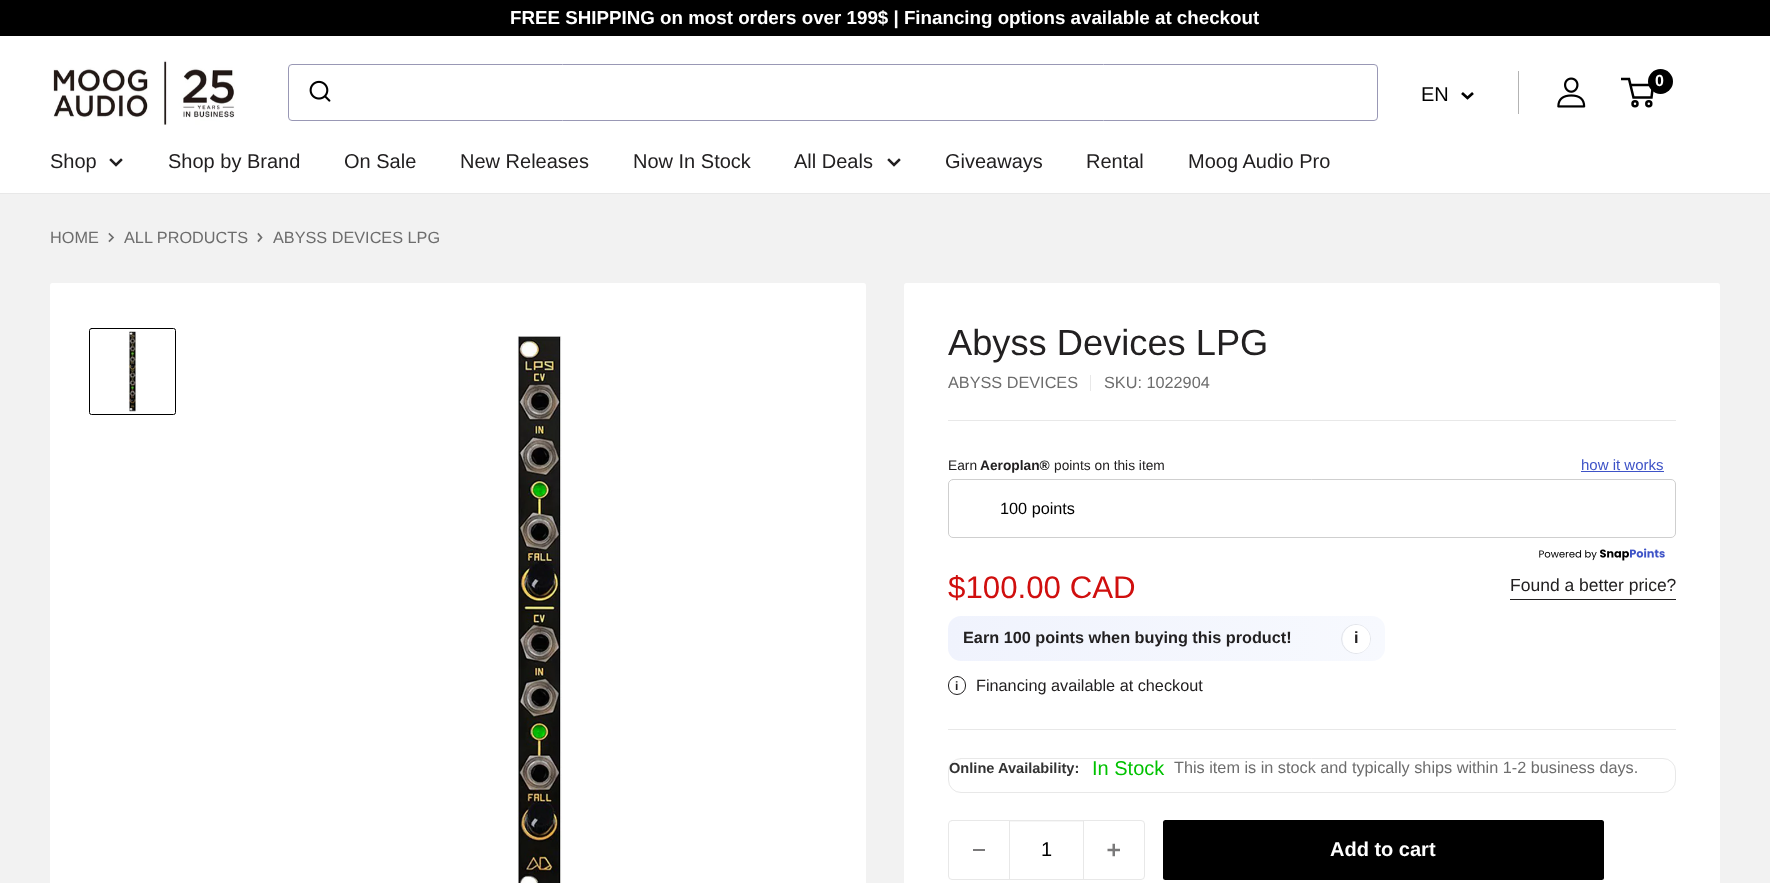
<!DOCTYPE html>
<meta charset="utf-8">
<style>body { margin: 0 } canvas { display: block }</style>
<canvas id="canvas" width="1770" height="883"></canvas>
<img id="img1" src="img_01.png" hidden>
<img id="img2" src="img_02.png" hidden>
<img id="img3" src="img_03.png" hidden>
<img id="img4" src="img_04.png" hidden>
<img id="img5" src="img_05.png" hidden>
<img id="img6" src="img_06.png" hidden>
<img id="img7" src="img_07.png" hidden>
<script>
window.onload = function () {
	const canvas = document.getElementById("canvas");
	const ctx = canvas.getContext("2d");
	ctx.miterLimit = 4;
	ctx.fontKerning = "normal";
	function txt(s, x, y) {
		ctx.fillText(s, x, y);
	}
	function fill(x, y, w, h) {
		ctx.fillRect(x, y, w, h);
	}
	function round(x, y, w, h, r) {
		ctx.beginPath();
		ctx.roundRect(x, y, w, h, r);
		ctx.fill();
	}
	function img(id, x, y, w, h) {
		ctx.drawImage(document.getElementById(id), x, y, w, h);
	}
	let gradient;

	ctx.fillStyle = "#F2F2F2";
	fill(0, 0, 1770, 883);
	ctx.fillStyle = "#000000";
	fill(0, 0, 1770, 36);
	ctx.fillStyle = "#FFFFFF";
	fill(0, 36, 1770, 157);
	img("img1", 53, 60, 182, 65);
	ctx.beginPath();
	ctx.roundRect(288.5, 64.5, 1089, 56, 3.5);
	ctx.strokeStyle = "#9998B5";
	ctx.stroke();
	img("img2", 309, 80, 22, 22);
	ctx.beginPath();
	ctx.moveTo(1462, 93);
	ctx.lineTo(1467.5, 98);
	ctx.lineTo(1473, 93);
	ctx.strokeStyle = "#000000";
	ctx.lineWidth = 2.7;
	ctx.stroke();
	ctx.fillStyle = "#B3B3B3";
	fill(1518, 71, 1, 43);
	img("img3", 1557, 77, 29, 31);
	ctx.beginPath();
	ctx.arc(1635, 103.8, 2.5, 0, Math.PI * 2);
	ctx.lineWidth = 2.5;
	ctx.stroke();
	ctx.beginPath();
	ctx.arc(1648.8, 103.8, 2.5, 0, Math.PI * 2);
	ctx.stroke();
	ctx.beginPath();
	ctx.moveTo(1630.5, 85);
	ctx.lineTo(1653, 85);
	ctx.lineTo(1651.5, 97.5);
	ctx.lineTo(1633.5, 97.5);
	ctx.lineTo(1629, 79);
	ctx.lineTo(1621, 79);
	ctx.stroke();
	ctx.fillStyle = "#000000";
	ctx.beginPath();
	ctx.arc(1660.5, 81.5, 12.5, 0, Math.PI * 2);
	ctx.fill();
	ctx.fillStyle = "#E8E8E8";
	fill(0, 193, 1770, 1);
	ctx.beginPath();
	ctx.moveTo(121, 160);
	ctx.lineTo(116, 165);
	ctx.lineTo(111, 160);
	ctx.strokeStyle = "#222021";
	ctx.lineCap = "square";
	ctx.stroke();
	ctx.beginPath();
	ctx.moveTo(899, 160);
	ctx.lineTo(894, 165);
	ctx.lineTo(889, 160);
	ctx.stroke();
	ctx.beginPath();
	ctx.moveTo(109.5, 234);
	ctx.lineTo(113, 237.5);
	ctx.lineTo(109.5, 241);
	ctx.strokeStyle = "#6D6D6D";
	ctx.lineWidth = 1.7;
	ctx.stroke();
	ctx.beginPath();
	ctx.moveTo(258.5, 234);
	ctx.lineTo(261.5, 237.5);
	ctx.lineTo(258.5, 241);
	ctx.stroke();
	ctx.fillStyle = "#FFFFFF";
	round(50, 283, 816, 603, 2.5);
	ctx.beginPath();
	ctx.roundRect(89.5, 328.5, 86, 86, 2);
	ctx.strokeStyle = "#000000";
	ctx.lineWidth = 1;
	ctx.stroke();
	img("img4", 128, 331, 10, 81);
	img("img5", 517, 336, 45, 547);
	round(904, 283, 816, 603, 2.5);
	ctx.fillStyle = "#E8E8E8";
	fill(1090, 375, 1, 16);
	fill(948, 420, 728, 1);
	ctx.fillStyle = "#3E53C7";
	fill(1581, 471, 83, 1);
	ctx.beginPath();
	ctx.roundRect(948.5, 479.5, 727, 58, 4.5);
	ctx.strokeStyle = "#CFCFCF";
	ctx.stroke();
	img("img6", 1539, 548, 126, 13);
	ctx.fillStyle = "#222021";
	fill(1510, 599, 166, 1);
	gradient = ctx.createLinearGradient(948, 639, 1385, 639);
	gradient.addColorStop(0, "#F0F3FD");
	gradient.addColorStop(1, "#F7F9FE");
	ctx.fillStyle = gradient;
	round(948, 616, 437, 45, 13);
	ctx.beginPath();
	ctx.arc(1356, 639, 14.5, 0, Math.PI * 2);
	ctx.strokeStyle = "#E3E5EA";
	ctx.stroke();
	ctx.fillStyle = "#FFFFFF";
	round(1343, 625, 27, 28, 13.5);
	ctx.beginPath();
	ctx.roundRect(948.5, 676.5, 17, 18, 8.5);
	ctx.strokeStyle = "#222021";
	ctx.stroke();
	ctx.fillStyle = "#E8E8E8";
	fill(948, 729, 728, 1);
	ctx.beginPath();
	ctx.roundRect(948.5, 758.5, 727, 34, 12.5);
	ctx.strokeStyle = "#E8E8E8";
	ctx.stroke();
	ctx.beginPath();
	ctx.roundRect(948.5, 820.5, 196, 59, 3.5);
	ctx.stroke();
	ctx.fillStyle = "#7A797A";
	fill(973, 849, 12, 2);
	ctx.fillStyle = "#F6F6F6";
	fill(1010, 821, 73, 1);
	ctx.fillStyle = "#E8E8E8";
	fill(1083, 821, 1, 58);
	fill(1009, 821, 1, 58);
	img("img7", 1107, 843, 13, 14);
	ctx.fillStyle = "#000000";
	round(1163, 820, 441, 60, 2.5);
	ctx.font = "bold 18.75px Liberation Sans";
	ctx.fillStyle = "#FFFFFF";
	txt("FREE SHIPPING on most orders over 199$ | Financing options available at checkout", 510, 24);
	ctx.font = "20px Liberation Sans";
	ctx.fillStyle = "#000000";
	txt("EN", 1421, 101);
	ctx.font = "bold 16px Liberation Sans";
	ctx.fillStyle = "#FFFFFF";
	txt("0", 1655, 86);
	ctx.font = "20px Liberation Sans";
	ctx.fillStyle = "#222021";
	txt("Shop", 50, 168);
	txt("Shop by Brand", 168, 168);
	txt("On Sale", 344, 168);
	txt("New Releases", 460, 168);
	txt("Now In Stock", 633, 168);
	txt("All Deals", 794, 168);
	txt("Giveaways", 945, 168);
	txt("Rental", 1086, 168);
	txt("Moog Audio Pro", 1188, 168);
	ctx.font = "16.25px Liberation Sans";
	ctx.fillStyle = "#6D6D6D";
	txt("HOME", 50, 243);
	txt("ALL PRODUCTS", 124, 243);
	txt("ABYSS DEVICES LPG", 273, 243);
	ctx.font = "36.25px Liberation Sans";
	ctx.fillStyle = "#222021";
	txt("Abyss Devices LPG", 948, 355);
	ctx.font = "16.25px Liberation Sans";
	ctx.fillStyle = "#6D6D6D";
	txt("ABYSS DEVICES", 948, 388);
	txt("SKU: 1022904", 1104, 388);
	ctx.font = "13.75px Liberation Sans";
	ctx.fillStyle = "#222021";
	txt("Earn", 948, 470);
	ctx.font = "bold 13.75px Liberation Sans";
	txt("Aeroplan®", 980, 470);
	ctx.font = "13.75px Liberation Sans";
	txt("points on this item", 1054, 470);
	ctx.font = "15px Liberation Sans";
	ctx.fillStyle = "#3E53C7";
	txt("how it works", 1581, 470);
	ctx.font = "16.25px Liberation Sans";
	ctx.fillStyle = "#000000";
	txt("100 points", 1000, 514);
	ctx.font = "31.25px Liberation Sans";
	ctx.fillStyle = "#D00F0E";
	txt("$100.00 CAD", 948, 598);
	ctx.font = "17.5px Liberation Sans";
	ctx.fillStyle = "#222021";
	txt("Found a better price?", 1510, 591);
	ctx.font = "bold 16.25px Liberation Sans";
	txt("Earn 100 points when buying this product!", 963, 643);
	txt("i", 1354, 643);
	ctx.font = "bold 12px Liberation Sans";
	txt("i", 955, 690);
	ctx.font = "16.25px Liberation Sans";
	txt("Financing available at checkout", 976, 691);
	ctx.font = "bold 14.6px Liberation Sans";
	ctx.fillStyle = "#333333";
	txt("Online Availability:", 949, 773);
	ctx.font = "20px Liberation Sans";
	ctx.fillStyle = "#00C200";
	txt("In Stock", 1092, 775);
	ctx.font = "16.25px Liberation Sans";
	ctx.fillStyle = "#6D6D6D";
	txt("This item is in stock and typically ships within 1-2 business days.", 1174, 773);
	ctx.font = "20px Liberation Sans";
	ctx.fillStyle = "#000000";
	txt("1", 1041, 856);
	ctx.font = "bold 20px Liberation Sans";
	ctx.fillStyle = "#FFFFFF";
	txt("Add to cart", 1330, 856);
};
</script>
